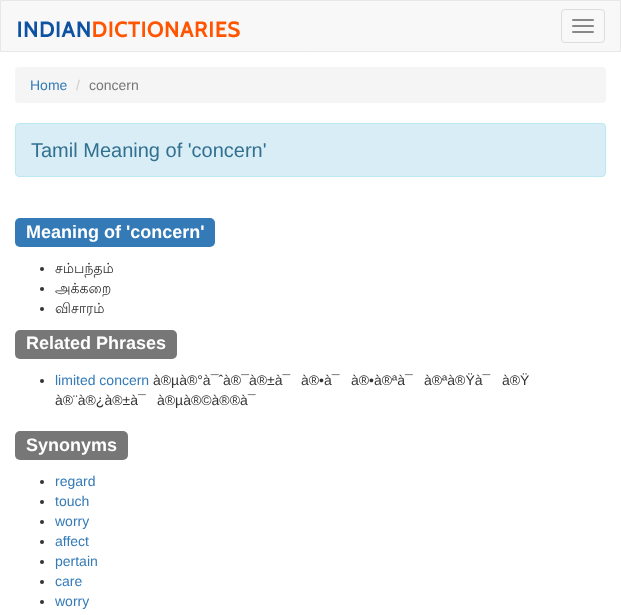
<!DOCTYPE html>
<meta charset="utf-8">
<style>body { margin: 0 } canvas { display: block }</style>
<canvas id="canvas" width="621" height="615"></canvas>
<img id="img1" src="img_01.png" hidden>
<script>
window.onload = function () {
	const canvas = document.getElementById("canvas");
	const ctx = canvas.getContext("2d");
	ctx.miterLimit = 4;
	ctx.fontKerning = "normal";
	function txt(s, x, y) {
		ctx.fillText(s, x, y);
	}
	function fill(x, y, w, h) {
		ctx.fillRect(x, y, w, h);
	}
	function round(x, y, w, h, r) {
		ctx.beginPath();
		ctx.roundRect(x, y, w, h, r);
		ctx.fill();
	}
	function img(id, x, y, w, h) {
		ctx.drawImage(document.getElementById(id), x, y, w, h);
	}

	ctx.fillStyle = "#FFFFFF";
	fill(0, 0, 621, 615);
	ctx.fillStyle = "#F8F8F8";
	ctx.beginPath();
	ctx.rect(0.5, 0.5, 620, 51);
	ctx.fill();
	ctx.strokeStyle = "#E7E7E7";
	ctx.stroke();
	img("img1", 18, 21, 222, 17);
	ctx.beginPath();
	ctx.roundRect(561.5, 9.5, 43, 33, 3.5);
	ctx.strokeStyle = "#DDDDDD";
	ctx.stroke();
	ctx.fillStyle = "#888888";
	round(572, 19, 22, 2, 1);
	round(572, 25, 22, 2, 1);
	round(572, 31, 22, 2, 1);
	ctx.fillStyle = "#F5F5F5";
	round(15, 67, 591, 36, 4);
	ctx.fillStyle = "#D9EDF7";
	ctx.beginPath();
	ctx.roundRect(15.5, 123.5, 590, 53, 3.5);
	ctx.fill();
	ctx.strokeStyle = "#BCE8F1";
	ctx.stroke();
	ctx.fillStyle = "#337AB7";
	round(15, 218, 200, 29, 5);
	ctx.fillStyle = "#333333";
	ctx.beginPath();
	ctx.arc(42, 269, 2, 0, Math.PI * 2);
	ctx.fill();
	ctx.beginPath();
	ctx.arc(42, 289, 2, 0, Math.PI * 2);
	ctx.fill();
	ctx.beginPath();
	ctx.arc(42, 309, 2, 0, Math.PI * 2);
	ctx.fill();
	ctx.fillStyle = "#777777";
	round(15, 330, 162, 29, 5);
	ctx.fillStyle = "#333333";
	ctx.beginPath();
	ctx.arc(42, 381, 2, 0, Math.PI * 2);
	ctx.fill();
	ctx.fillStyle = "#777777";
	round(15, 431, 113, 29, 5);
	ctx.fillStyle = "#333333";
	ctx.beginPath();
	ctx.arc(42, 482, 2, 0, Math.PI * 2);
	ctx.fill();
	ctx.beginPath();
	ctx.arc(42, 502, 2, 0, Math.PI * 2);
	ctx.fill();
	ctx.beginPath();
	ctx.arc(42, 522, 2, 0, Math.PI * 2);
	ctx.fill();
	ctx.beginPath();
	ctx.arc(42, 542, 2, 0, Math.PI * 2);
	ctx.fill();
	ctx.beginPath();
	ctx.arc(42, 562, 2, 0, Math.PI * 2);
	ctx.fill();
	ctx.beginPath();
	ctx.arc(42, 582, 2, 0, Math.PI * 2);
	ctx.fill();
	ctx.beginPath();
	ctx.arc(42, 602, 2, 0, Math.PI * 2);
	ctx.fill();
	ctx.font = "14px Liberation Sans";
	ctx.fillStyle = "#337AB7";
	txt("Home", 30, 90);
	ctx.fillStyle = "#CCCCCC";
	txt("/", 76, 90);
	ctx.fillStyle = "#777777";
	txt("concern", 89, 90);
	ctx.font = "20px Liberation Sans";
	ctx.fillStyle = "#31708F";
	txt("Tamil Meaning of 'concern'", 31, 157);
	ctx.font = "bold 18px Liberation Sans";
	ctx.fillStyle = "#FFFFFF";
	txt("Meaning of 'concern'", 26, 238);
	ctx.font = "14px Lohit Tamil";
	ctx.fillStyle = "#333333";
	txt("சம்பந்தம்", 55, 273);
	txt("அக்கறை", 55, 293);
	txt("விசாரம்", 55, 313);
	ctx.font = "bold 18px Liberation Sans";
	ctx.fillStyle = "#FFFFFF";
	txt("Related Phrases", 26, 349);
	ctx.font = "14px Liberation Sans";
	ctx.fillStyle = "#337AB7";
	txt("limited concern", 55, 385);
	ctx.fillStyle = "#333333";
	txt("à®µà®°à¯ˆà®¯à®±à¯", 153, 385);
	txt("à®•à¯", 301, 385);
	txt("à®•à®ªà¯", 351, 385);
	txt("à®ªà®Ÿà¯", 424, 385);
	txt("à®Ÿ", 502, 385);
	txt("à®¨à®¿à®±à¯", 55, 405);
	txt("à®µà®©à®®à¯", 157, 405);
	ctx.font = "bold 18px Liberation Sans";
	ctx.fillStyle = "#FFFFFF";
	txt("Synonyms", 26, 451);
	ctx.font = "14px Liberation Sans";
	ctx.fillStyle = "#337AB7";
	txt("regard", 55, 486);
	txt("touch", 55, 506);
	txt("worry", 55, 526);
	txt("affect", 55, 546);
	txt("pertain", 55, 566);
	txt("care", 55, 586);
	txt("worry", 55, 606);
};
</script>
